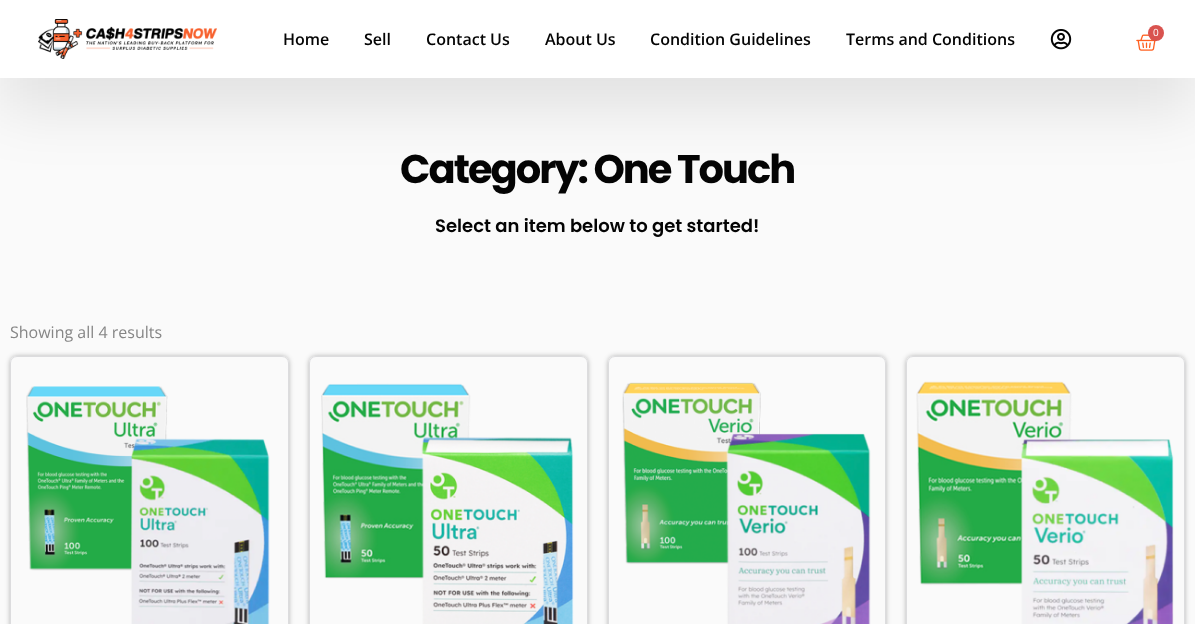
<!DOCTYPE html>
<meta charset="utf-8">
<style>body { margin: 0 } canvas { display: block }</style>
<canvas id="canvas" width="1195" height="624"></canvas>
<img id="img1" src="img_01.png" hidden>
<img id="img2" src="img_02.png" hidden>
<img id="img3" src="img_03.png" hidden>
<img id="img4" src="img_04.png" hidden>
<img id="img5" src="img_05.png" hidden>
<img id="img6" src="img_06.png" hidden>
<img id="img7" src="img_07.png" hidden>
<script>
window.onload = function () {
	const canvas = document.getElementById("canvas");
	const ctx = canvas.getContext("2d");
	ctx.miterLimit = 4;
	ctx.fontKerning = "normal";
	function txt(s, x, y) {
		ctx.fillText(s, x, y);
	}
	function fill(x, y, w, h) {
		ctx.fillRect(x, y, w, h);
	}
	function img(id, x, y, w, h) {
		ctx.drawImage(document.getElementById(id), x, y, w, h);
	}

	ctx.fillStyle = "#FAFAFA";
	fill(0, 0, 1195, 624);
	ctx.fillStyle = "rgba(0, 0, 0, 0.1)";
	ctx.filter = "blur(30px)";
	ctx.beginPath();
	ctx.rect(0, 30, 1195, 78);
	ctx.fill();
	ctx.filter = "none";
	ctx.fillStyle = "#FFFFFF";
	fill(0, 0, 1195, 78);
	img("img1", 38, 19, 179, 40);
	img("img2", 1050, 29, 22, 21);
	img("img3", 1136, 34, 21, 17);
	ctx.fillStyle = "#D9534F";
	ctx.beginPath();
	ctx.arc(1156, 33, 8, 0, Math.PI * 2);
	ctx.fill();
	ctx.save();
	ctx.beginPath();
	ctx.moveTo(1, 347);
	ctx.lineTo(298, 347);
	ctx.lineTo(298, 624);
	ctx.lineTo(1, 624);
	ctx.closePath();
	ctx.moveTo(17, 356);
	ctx.lineTo(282, 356);
	ctx.bezierCurveTo(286, 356, 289, 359, 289, 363);
	ctx.lineTo(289, 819);
	ctx.bezierCurveTo(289, 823, 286, 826, 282, 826);
	ctx.lineTo(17, 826);
	ctx.bezierCurveTo(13, 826, 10, 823, 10, 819);
	ctx.lineTo(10, 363);
	ctx.bezierCurveTo(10, 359, 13, 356, 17, 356);
	ctx.closePath();
	ctx.clip("evenodd");
	ctx.fillStyle = "rgba(0, 0, 0, 0.28)";
	ctx.filter = "blur(2.5px)";
	ctx.beginPath();
	ctx.roundRect(10, 356, 279, 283, 7);
	ctx.fill();
	ctx.filter = "none";
	ctx.restore();
	ctx.beginPath();
	ctx.roundRect(10.5, 356.5, 278, 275, 6.5);
	ctx.strokeStyle = "#DCDCDE";
	ctx.stroke();
	img("img4", 26, 386, 244, 238);
	ctx.save();
	ctx.beginPath();
	ctx.moveTo(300, 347);
	ctx.lineTo(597, 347);
	ctx.lineTo(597, 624);
	ctx.lineTo(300, 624);
	ctx.closePath();
	ctx.moveTo(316, 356);
	ctx.lineTo(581, 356);
	ctx.bezierCurveTo(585, 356, 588, 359, 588, 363);
	ctx.lineTo(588, 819);
	ctx.bezierCurveTo(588, 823, 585, 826, 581, 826);
	ctx.lineTo(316, 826);
	ctx.bezierCurveTo(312, 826, 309, 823, 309, 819);
	ctx.lineTo(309, 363);
	ctx.bezierCurveTo(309, 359, 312, 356, 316, 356);
	ctx.closePath();
	ctx.clip("evenodd");
	ctx.fillStyle = "rgba(0, 0, 0, 0.28)";
	ctx.filter = "blur(2.5px)";
	ctx.beginPath();
	ctx.roundRect(309, 356, 279, 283, 7);
	ctx.fill();
	ctx.filter = "none";
	ctx.restore();
	ctx.beginPath();
	ctx.roundRect(309.5, 356.5, 278, 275, 6.5);
	ctx.stroke();
	img("img5", 321, 383, 253, 241);
	ctx.save();
	ctx.beginPath();
	ctx.moveTo(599, 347);
	ctx.lineTo(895, 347);
	ctx.lineTo(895, 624);
	ctx.lineTo(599, 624);
	ctx.closePath();
	ctx.moveTo(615, 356);
	ctx.lineTo(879, 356);
	ctx.bezierCurveTo(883, 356, 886, 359, 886, 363);
	ctx.lineTo(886, 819);
	ctx.bezierCurveTo(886, 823, 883, 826, 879, 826);
	ctx.lineTo(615, 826);
	ctx.bezierCurveTo(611, 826, 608, 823, 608, 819);
	ctx.lineTo(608, 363);
	ctx.bezierCurveTo(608, 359, 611, 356, 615, 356);
	ctx.closePath();
	ctx.clip("evenodd");
	ctx.fillStyle = "rgba(0, 0, 0, 0.28)";
	ctx.filter = "blur(2.5px)";
	ctx.beginPath();
	ctx.roundRect(608, 356, 278, 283, 7);
	ctx.fill();
	ctx.filter = "none";
	ctx.restore();
	ctx.beginPath();
	ctx.roundRect(608.5, 356.5, 277, 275, 6.5);
	ctx.stroke();
	img("img6", 622, 382, 249, 242);
	ctx.save();
	ctx.beginPath();
	ctx.moveTo(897, 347);
	ctx.lineTo(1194, 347);
	ctx.lineTo(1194, 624);
	ctx.lineTo(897, 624);
	ctx.closePath();
	ctx.moveTo(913, 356);
	ctx.lineTo(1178, 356);
	ctx.bezierCurveTo(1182, 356, 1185, 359, 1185, 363);
	ctx.lineTo(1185, 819);
	ctx.bezierCurveTo(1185, 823, 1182, 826, 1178, 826);
	ctx.lineTo(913, 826);
	ctx.bezierCurveTo(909, 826, 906, 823, 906, 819);
	ctx.lineTo(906, 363);
	ctx.bezierCurveTo(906, 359, 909, 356, 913, 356);
	ctx.closePath();
	ctx.clip("evenodd");
	ctx.fillStyle = "rgba(0, 0, 0, 0.28)";
	ctx.filter = "blur(2.5px)";
	ctx.beginPath();
	ctx.roundRect(906, 356, 279, 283, 7);
	ctx.fill();
	ctx.filter = "none";
	ctx.restore();
	ctx.beginPath();
	ctx.roundRect(906.5, 356.5, 278, 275, 6.5);
	ctx.stroke();
	img("img7", 916, 381, 258, 243);
	ctx.font = "600 16px Open Sans";
	ctx.fillStyle = "#040404";
	txt("Home", 283, 45);
	txt("Sell", 364, 45);
	txt("Contact Us", 426, 45);
	txt("About Us", 545, 45);
	txt("Condition Guidelines", 650, 45);
	txt("Terms and Conditions", 846, 45);
	ctx.font = "10px Open Sans";
	ctx.fillStyle = "#FFFFFF";
	txt("0", 1153, 36);
	ctx.letterSpacing = "-2px";
	ctx.font = "bold 40px Poppins";
	ctx.fillStyle = "#040404";
	txt("Category: One Touch", 400, 183);
	ctx.letterSpacing = "0px";
	ctx.font = "600 18px Poppins";
	txt("Select an item below to get started!", 435, 232);
	ctx.font = "16px Open Sans";
	ctx.fillStyle = "#868686";
	txt("Showing all 4 results", 10, 338);
};
</script>
